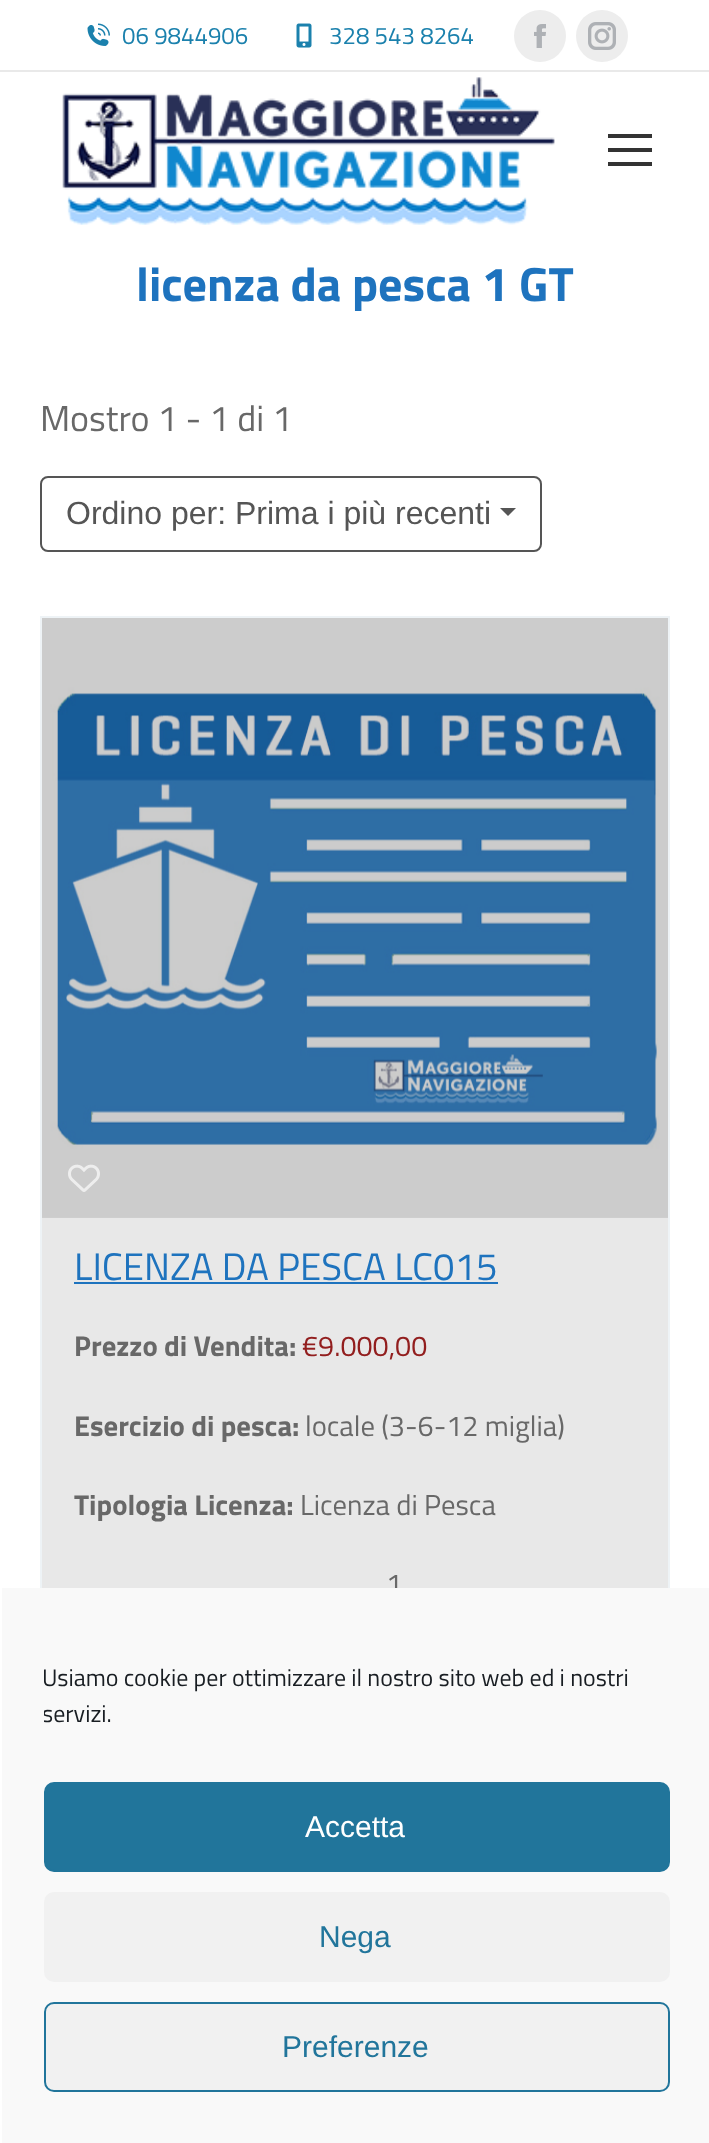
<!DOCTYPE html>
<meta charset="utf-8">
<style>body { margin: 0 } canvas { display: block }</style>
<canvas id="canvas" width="709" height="2143"></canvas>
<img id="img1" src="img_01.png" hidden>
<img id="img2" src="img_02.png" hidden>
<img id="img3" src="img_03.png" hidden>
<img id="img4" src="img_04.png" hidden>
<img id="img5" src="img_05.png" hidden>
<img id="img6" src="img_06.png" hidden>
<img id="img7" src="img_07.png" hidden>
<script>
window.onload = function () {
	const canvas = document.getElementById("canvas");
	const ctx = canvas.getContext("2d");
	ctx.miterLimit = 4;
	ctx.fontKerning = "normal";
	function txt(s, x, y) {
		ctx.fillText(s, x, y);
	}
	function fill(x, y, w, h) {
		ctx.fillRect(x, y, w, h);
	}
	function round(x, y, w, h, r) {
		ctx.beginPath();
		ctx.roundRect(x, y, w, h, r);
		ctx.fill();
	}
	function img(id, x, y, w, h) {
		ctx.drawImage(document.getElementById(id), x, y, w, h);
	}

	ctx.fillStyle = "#FFFFFF";
	fill(0, 0, 709, 2143);
	img("img1", 87, 23, 23, 23);
	img("img2", 296, 23, 16, 25);
	ctx.fillStyle = "#EDEDED";
	ctx.beginPath();
	ctx.arc(540, 36, 26, 0, Math.PI * 2);
	ctx.fill();
	img("img3", 534, 24, 12, 24);
	ctx.beginPath();
	ctx.arc(602, 36, 26, 0, Math.PI * 2);
	ctx.fill();
	img("img4", 588, 22, 28, 28);
	ctx.fillStyle = "#E9E9E9";
	fill(0, 70, 709, 2);
	img("img5", 62, 77, 493, 148);
	ctx.fillStyle = "#333333";
	fill(608, 134, 44, 4);
	fill(608, 148, 44, 4);
	fill(608, 162, 44, 4);
	ctx.beginPath();
	ctx.roundRect(41, 477, 500, 74, 7);
	ctx.strokeStyle = "#555555";
	ctx.lineWidth = 2;
	ctx.stroke();
	ctx.fillStyle = "#555555";
	ctx.beginPath();
	ctx.moveTo(500, 508);
	ctx.lineTo(516, 508);
	ctx.lineTo(508, 516);
	ctx.closePath();
	ctx.fill();
	ctx.fillStyle = "#E8E8E8";
	fill(42, 1217, 626, 371);
	ctx.strokeStyle = "#EEF3F6";
	ctx.strokeRect(41, 617, 628, 1256);
	img("img6", 42, 618, 626, 600);
	img("img7", 68, 1164, 32, 28);
	ctx.fillStyle = "#1E73BE";
	fill(74, 1282, 424, 2);
	ctx.font = "24px Titillium Web";
	ctx.fillStyle = "#1B81AD";
	txt("06 9844906", 122, 44);
	txt("328 543 8264", 329, 44);
	ctx.font = "bold 48px Titillium Web";
	ctx.fillStyle = "#1E73BE";
	txt("licenza da pesca 1 GT", 136, 301);
	ctx.font = "36px Titillium Web";
	ctx.fillStyle = "#686868";
	txt("Mostro 1 - 1 di 1", 40, 431);
	ctx.font = "32px Liberation Sans";
	ctx.fillStyle = "#555555";
	txt("Ordino per: Prima i più recenti", 66, 524);
	ctx.font = "38.4px Titillium Web";
	ctx.fillStyle = "#1E73BE";
	txt("LICENZA DA PESCA LC015", 74, 1280);
	ctx.font = "bold 28.75px Titillium Web";
	ctx.fillStyle = "#686868";
	txt("Prezzo di Vendita:", 74, 1356);
	ctx.font = "28.75px Titillium Web";
	ctx.fillStyle = "#921E1E";
	txt("€9.000,00", 302, 1356);
	ctx.font = "bold 28.75px Titillium Web";
	ctx.fillStyle = "#686868";
	txt("Esercizio di pesca:", 74, 1436);
	ctx.font = "28.75px Titillium Web";
	txt("locale (3-6-12 miglia)", 305, 1436);
	ctx.font = "bold 28.75px Titillium Web";
	txt("Tipologia Licenza:", 74, 1515);
	ctx.font = "28.75px Titillium Web";
	txt("Licenza di Pesca", 300, 1515);
	txt("1", 386, 1594);
	ctx.fillStyle = "#F9F9F9";
	fill(2, 1588, 707, 555);
	ctx.save();
	ctx.beginPath();
	ctx.rect(44, 1660, 626, 82);
	ctx.clip();
	ctx.font = "24px Titillium Web";
	ctx.fillStyle = "#191E23";
	txt("Usiamo cookie per ottimizzare il nostro sito web ed i nostri", 42, 1686);
	txt("servizi.", 42, 1722);
	ctx.restore();
	ctx.fillStyle = "#21759B";
	ctx.beginPath();
	ctx.roundRect(45, 1783, 624, 88, 9);
	ctx.fill();
	ctx.strokeStyle = "#21759B";
	ctx.stroke();
	ctx.font = "30px Liberation Sans";
	ctx.fillStyle = "#FFFFFF";
	txt("Accetta", 305, 1837);
	ctx.fillStyle = "#F1F1F1";
	round(44, 1892, 626, 90, 10);
	ctx.fillStyle = "#21759B";
	txt("Nega", 319, 1947);
	ctx.fillStyle = "#F1F1F1";
	ctx.beginPath();
	ctx.roundRect(45, 2003, 624, 88, 9);
	ctx.fill();
	ctx.stroke();
	ctx.fillStyle = "#21759B";
	txt("Preferenze", 282, 2057);
};
</script>
